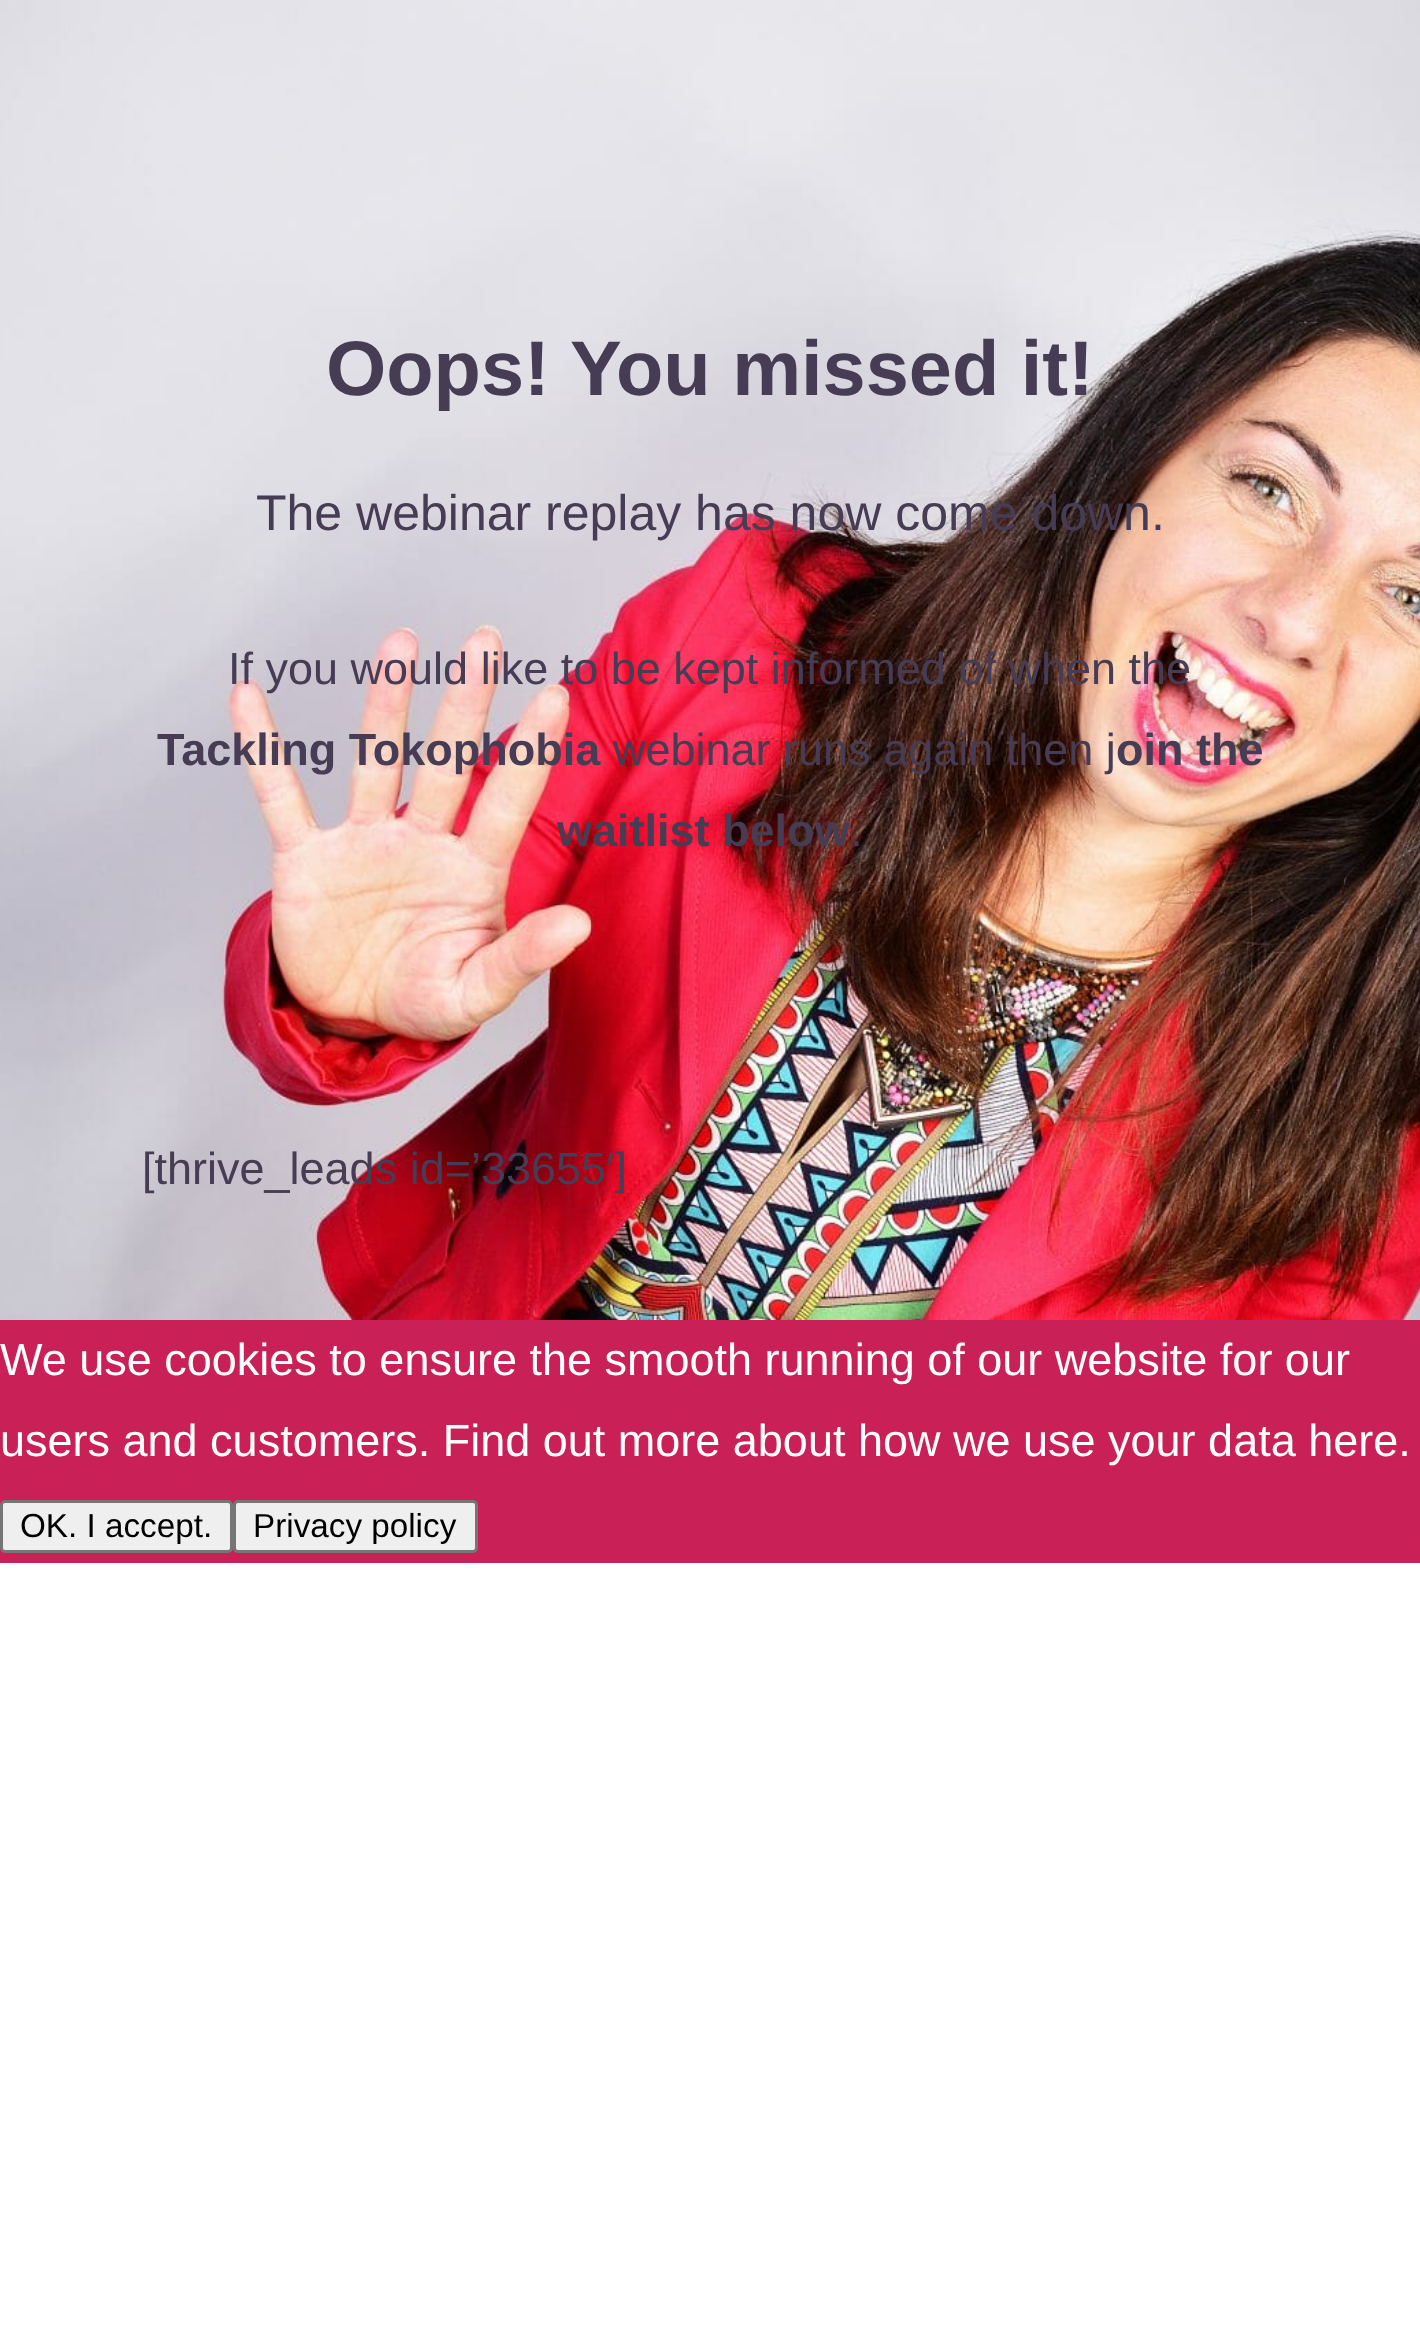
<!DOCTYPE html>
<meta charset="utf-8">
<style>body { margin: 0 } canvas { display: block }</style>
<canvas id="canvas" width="1420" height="2341"></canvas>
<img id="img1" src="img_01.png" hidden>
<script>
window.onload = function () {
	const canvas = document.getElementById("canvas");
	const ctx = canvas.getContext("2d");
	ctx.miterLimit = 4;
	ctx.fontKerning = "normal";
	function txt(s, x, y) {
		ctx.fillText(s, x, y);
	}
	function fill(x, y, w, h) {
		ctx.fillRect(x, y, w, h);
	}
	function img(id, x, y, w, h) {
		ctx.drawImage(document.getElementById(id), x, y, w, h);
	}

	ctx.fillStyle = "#FFFFFF";
	fill(0, 0, 1420, 2341);
	img("img1", 0, 0, 1420, 1320);
	ctx.fillStyle = "#CA2058";
	fill(0, 1320, 1420, 243);
	ctx.fillStyle = "#EFEFEF";
	ctx.beginPath();
	ctx.roundRect(1.5, 1501.5, 230, 50, 3.5);
	ctx.fill();
	ctx.strokeStyle = "#767676";
	ctx.lineWidth = 3;
	ctx.stroke();
	ctx.beginPath();
	ctx.roundRect(234.5, 1501.5, 242, 50, 3.5);
	ctx.fill();
	ctx.stroke();
	ctx.font = "bold 77.5px Liberation Sans";
	ctx.fillStyle = "#463C53";
	txt("Oops! You missed it!", 326, 395);
	ctx.font = "50px Liberation Sans";
	txt("The webinar replay has now come down.", 256, 530);
	ctx.font = "45px Liberation Sans";
	txt("If you would like to be kept informed of when the", 228, 684);
	ctx.font = "bold 45px Liberation Sans";
	txt("Tackling Tokophobia", 157, 765);
	ctx.font = "45px Liberation Sans";
	txt("webinar runs again then j", 613, 765);
	ctx.font = "bold 45px Liberation Sans";
	txt("oin the", 1116, 765);
	txt("waitlist below", 557, 846);
	ctx.font = "45px Liberation Sans";
	txt(".", 850, 846);
	txt("[thrive_leads id=’33655′]", 142, 1184);
	ctx.fillStyle = "#FFFFFF";
	txt("We use cookies to ensure the smooth running of our website for our", 0, 1375);
	txt("users and customers. Find out more about how we use your data here.", 0, 1456);
	ctx.font = "33.25px Liberation Sans";
	ctx.fillStyle = "#000000";
	txt("OK. I accept.", 20, 1537);
	txt("Privacy policy", 253, 1537);
};
</script>
